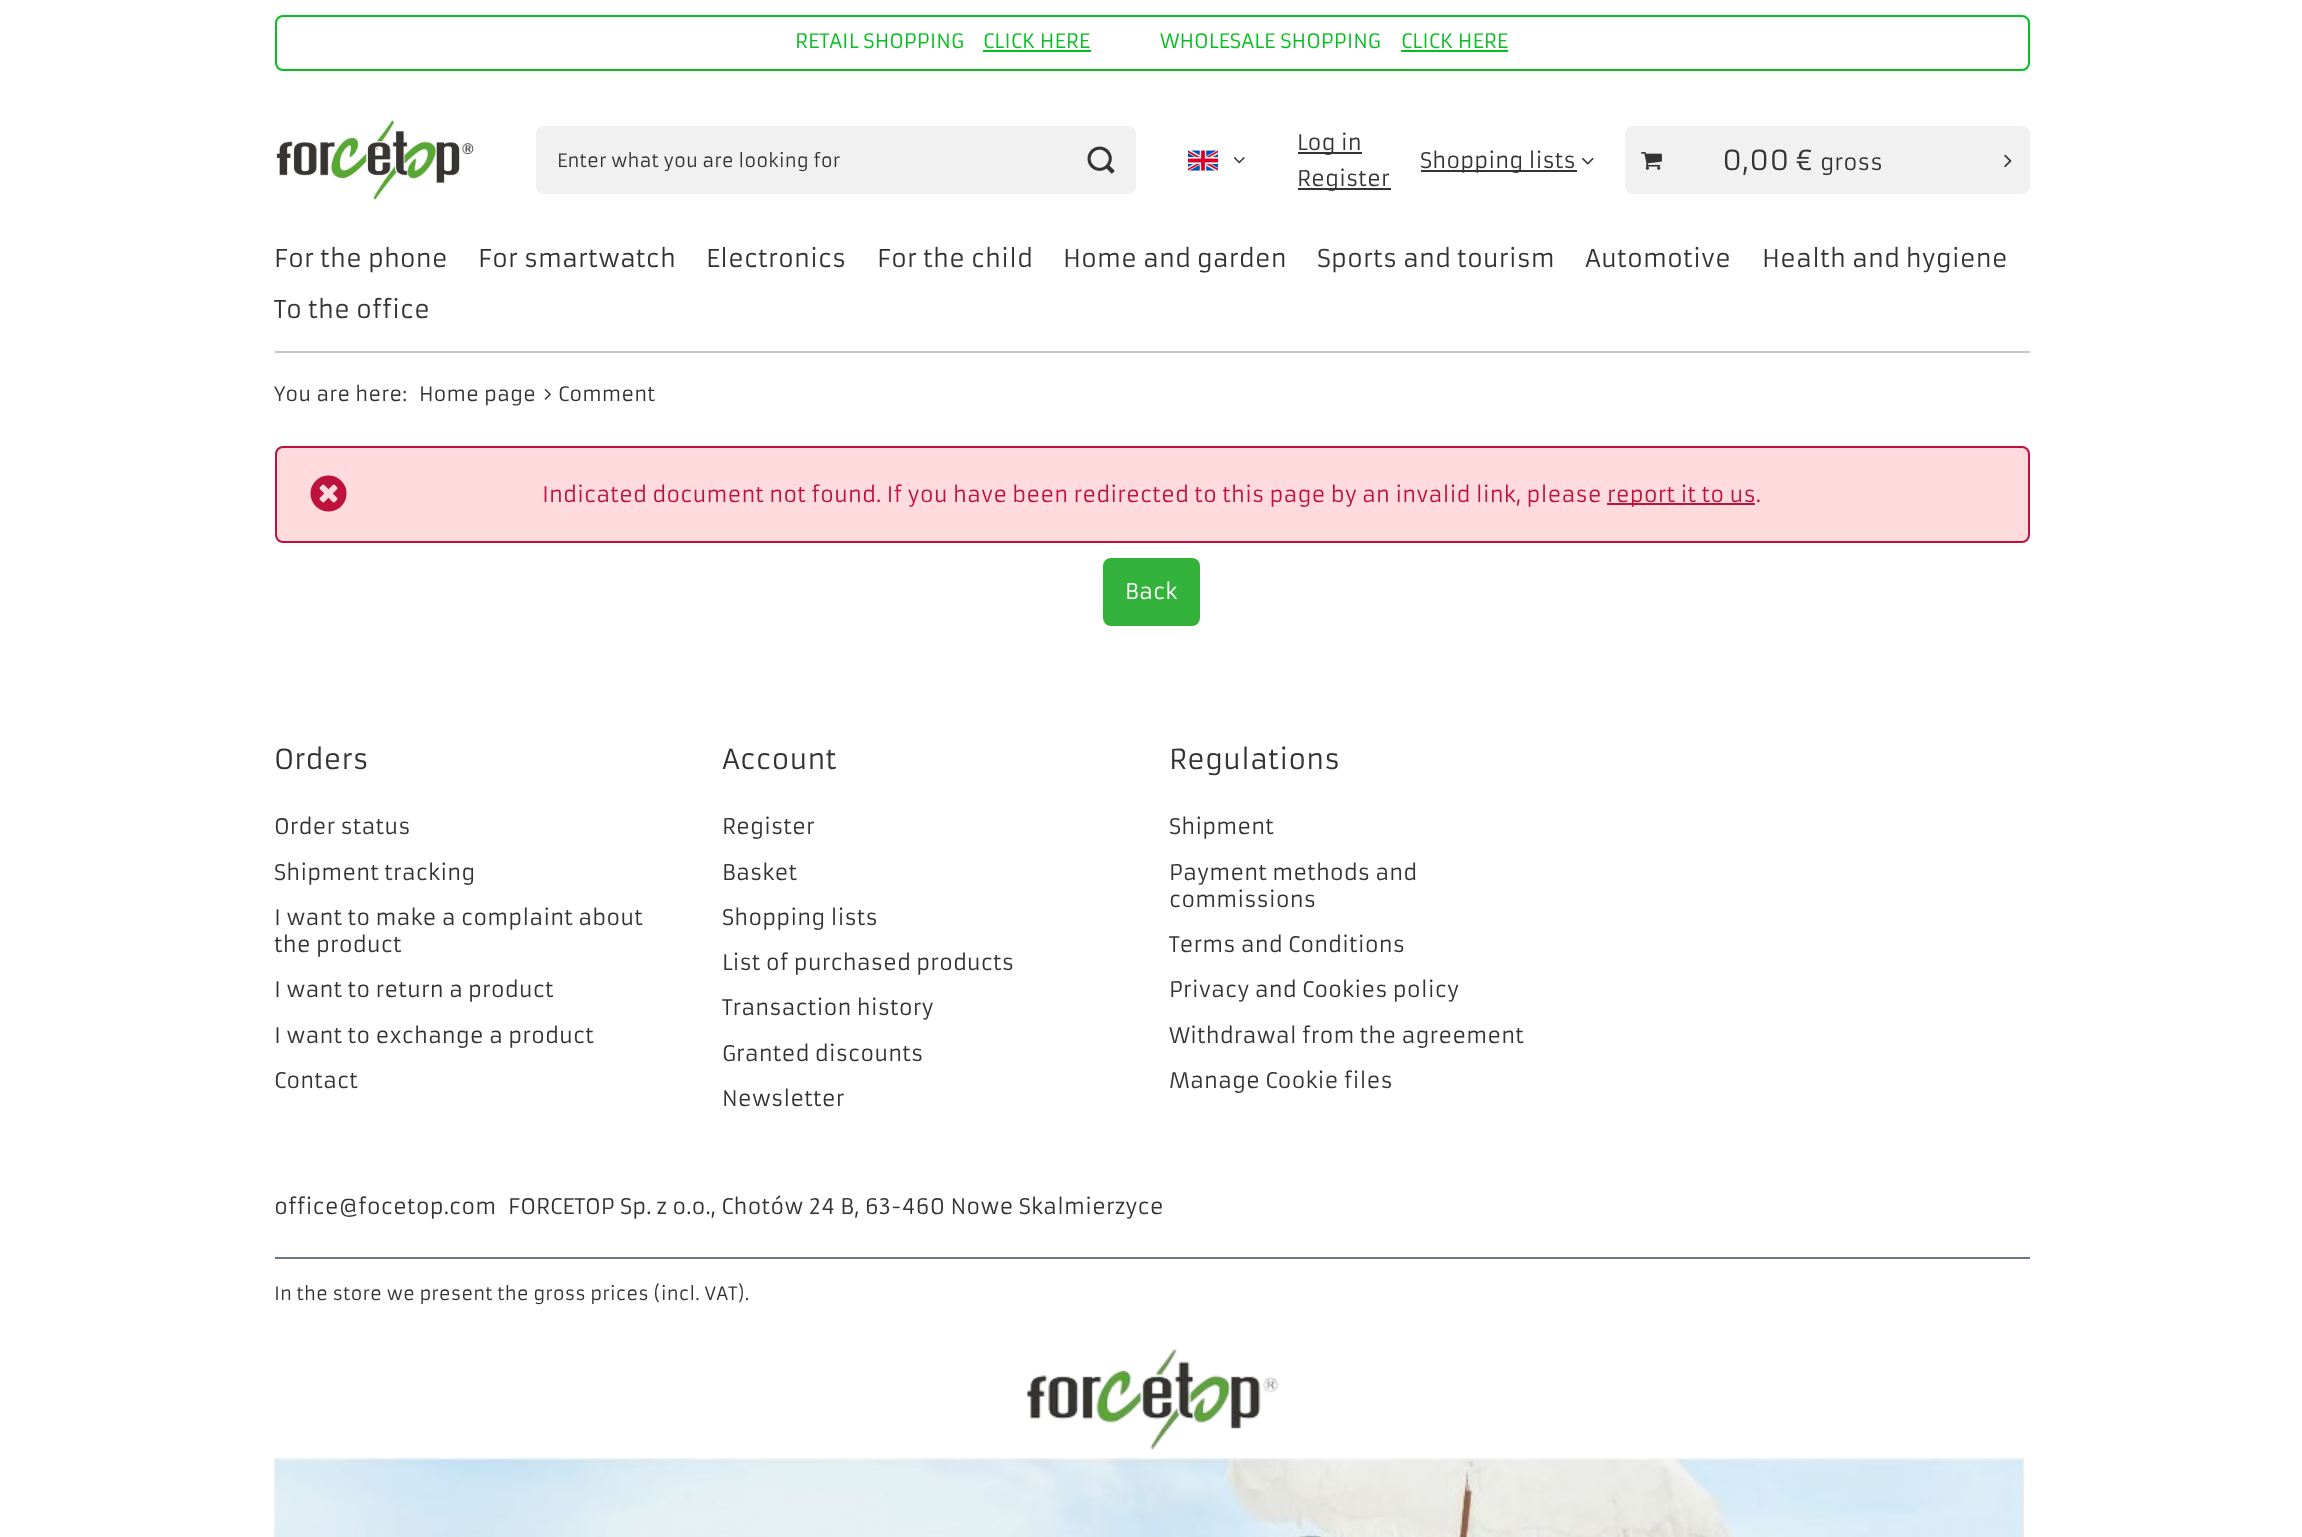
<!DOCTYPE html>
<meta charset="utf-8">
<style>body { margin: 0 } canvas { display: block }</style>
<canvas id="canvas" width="2302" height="1537"></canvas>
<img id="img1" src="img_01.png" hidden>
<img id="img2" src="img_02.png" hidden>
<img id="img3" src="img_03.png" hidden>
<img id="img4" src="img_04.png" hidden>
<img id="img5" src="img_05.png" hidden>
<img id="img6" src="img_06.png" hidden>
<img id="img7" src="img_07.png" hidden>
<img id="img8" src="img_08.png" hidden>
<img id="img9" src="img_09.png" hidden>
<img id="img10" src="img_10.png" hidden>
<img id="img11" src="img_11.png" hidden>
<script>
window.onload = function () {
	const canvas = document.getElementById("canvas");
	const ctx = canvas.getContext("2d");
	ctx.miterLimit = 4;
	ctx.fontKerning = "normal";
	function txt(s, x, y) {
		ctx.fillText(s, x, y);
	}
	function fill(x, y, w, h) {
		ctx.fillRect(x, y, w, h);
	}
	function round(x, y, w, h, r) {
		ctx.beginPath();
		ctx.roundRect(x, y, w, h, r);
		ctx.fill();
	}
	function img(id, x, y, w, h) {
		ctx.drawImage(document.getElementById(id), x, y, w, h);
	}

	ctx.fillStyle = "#FFFFFF";
	fill(0, 0, 2302, 1537);
	ctx.beginPath();
	ctx.roundRect(276, 16, 1753, 54, 7);
	ctx.strokeStyle = "#05BE21";
	ctx.lineWidth = 2;
	ctx.stroke();
	ctx.fillStyle = "#05BE21";
	fill(983, 50, 108, 2);
	fill(1401, 50, 107, 2);
	img("img1", 276, 120, 198, 80);
	ctx.fillStyle = "#F1F1F1";
	round(536, 126, 600, 68, 8);
	img("img2", 1087, 146, 28, 28);
	img("img3", 1188, 150, 30, 21);
	img("img4", 1233, 157, 12, 7);
	ctx.fillStyle = "#333333";
	fill(1298, 152, 64, 2);
	fill(1298, 188, 93, 2);
	fill(1421, 170, 156, 2);
	img("img5", 1582, 157, 12, 8);
	ctx.fillStyle = "#F1F1F1";
	ctx.beginPath();
	ctx.roundRect(1626, 127, 403, 66, 7);
	ctx.fill();
	ctx.strokeStyle = "#F1F1F1";
	ctx.stroke();
	img("img6", 1641, 152, 21, 18);
	img("img7", 2004, 154, 8, 14);
	ctx.fillStyle = "#C4C7C8";
	fill(275, 351, 1755, 2);
	img("img8", 544, 389, 7, 11);
	ctx.fillStyle = "#FFDBDD";
	ctx.beginPath();
	ctx.roundRect(276, 447, 1753, 95, 7);
	ctx.fill();
	ctx.strokeStyle = "#BE123C";
	ctx.stroke();
	img("img9", 310, 475, 37, 37);
	ctx.fillStyle = "#BE123C";
	fill(1607, 503, 148, 2);
	ctx.fillStyle = "#33B33B";
	ctx.beginPath();
	ctx.roundRect(1104, 559, 95, 66, 7);
	ctx.fill();
	ctx.strokeStyle = "#33B33B";
	ctx.stroke();
	ctx.fillStyle = "#6B7785";
	fill(275, 1257, 1755, 2);
	img("img10", 1026, 1348, 253, 102);
	img("img11", 274, 1458, 1752, 79);
	ctx.font = "19.5px Armata";
	ctx.fillStyle = "#05BE21";
	txt("RETAIL SHOPPING", 795, 48);
	txt("CLICK HERE", 983, 48);
	txt("WHOLESALE SHOPPING", 1160, 48);
	txt("CLICK HERE", 1401, 48);
	ctx.font = "18px Armata";
	ctx.fillStyle = "#333333";
	txt("Enter what you are looking for", 557, 167);
	ctx.font = "21px Armata";
	txt("Log in", 1297, 150);
	txt("Register", 1297, 186);
	txt("Shopping lists", 1420, 168);
	ctx.font = "27px Armata";
	txt("0,00 €", 1722, 170);
	ctx.font = "21.5px Armata";
	txt("gross", 1820, 170);
	ctx.font = "24px Armata";
	txt("For the phone", 274, 267);
	txt("For smartwatch", 478, 267);
	txt("Electronics", 706, 267);
	txt("For the child", 877, 267);
	txt("Home and garden", 1063, 267);
	txt("Sports and tourism", 1317, 267);
	txt("Automotive", 1585, 267);
	txt("Health and hygiene", 1762, 267);
	txt("To the office", 274, 318);
	ctx.font = "19.5px Armata";
	txt("You are here:", 274, 401);
	txt("Home page", 419, 401);
	txt("Comment", 558, 401);
	ctx.font = "21px Armata";
	ctx.fillStyle = "#BE123C";
	txt("Indicated document not found. If you have been redirected to this page by an invalid link, please", 542, 502);
	txt("report it to us.", 1607, 502);
	ctx.fillStyle = "#FFFFFF";
	txt("Back", 1125, 599);
	ctx.font = "27px Armata";
	ctx.fillStyle = "#333333";
	txt("Orders", 274, 769);
	ctx.font = "21px Armata";
	txt("Order status", 274, 834);
	txt("Shipment tracking", 274, 880);
	txt("I want to make a complaint about", 274, 925);
	txt("the product", 274, 952);
	txt("I want to return a product", 274, 997);
	txt("I want to exchange a product", 274, 1043);
	txt("Contact", 274, 1088);
	ctx.font = "27px Armata";
	txt("Account", 722, 769);
	ctx.font = "21px Armata";
	txt("Register", 722, 834);
	txt("Basket", 722, 880);
	txt("Shopping lists", 722, 925);
	txt("List of purchased products", 722, 970);
	txt("Transaction history", 722, 1015);
	txt("Granted discounts", 722, 1061);
	txt("Newsletter", 722, 1106);
	ctx.font = "27px Armata";
	txt("Regulations", 1169, 769);
	ctx.font = "21px Armata";
	txt("Shipment", 1169, 834);
	txt("Payment methods and", 1169, 880);
	txt("commissions", 1169, 907);
	txt("Terms and Conditions", 1169, 952);
	txt("Privacy and Cookies policy", 1169, 997);
	txt("Withdrawal from the agreement", 1169, 1043);
	txt("Manage Cookie files", 1169, 1088);
	txt("office@focetop.com", 274, 1214);
	txt("FORCETOP Sp. z o.o., Chotów 24 B, 63-460 Nowe Skalmierzyce", 508, 1214);
	ctx.font = "18px Armata";
	txt("In the store we present the gross prices (incl. VAT).", 274, 1300);
};
</script>
